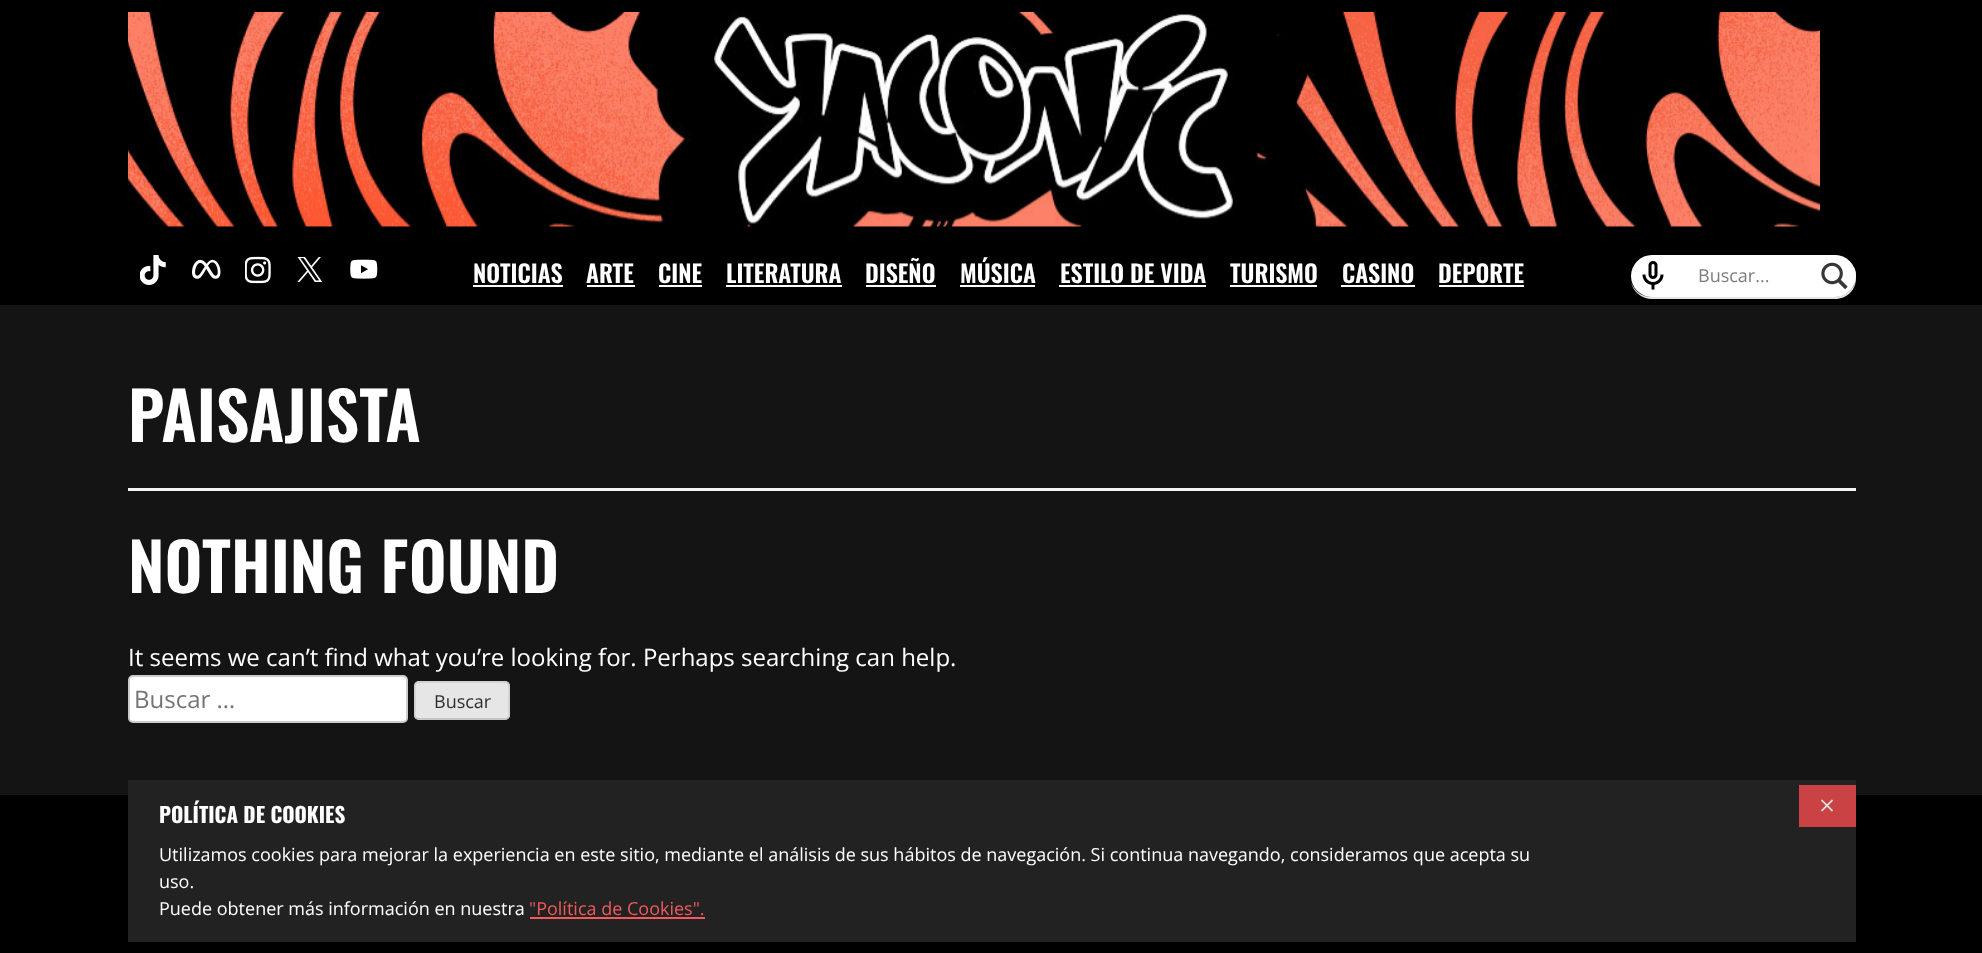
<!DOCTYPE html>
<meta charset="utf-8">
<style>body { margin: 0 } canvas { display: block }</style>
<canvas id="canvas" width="1982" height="953"></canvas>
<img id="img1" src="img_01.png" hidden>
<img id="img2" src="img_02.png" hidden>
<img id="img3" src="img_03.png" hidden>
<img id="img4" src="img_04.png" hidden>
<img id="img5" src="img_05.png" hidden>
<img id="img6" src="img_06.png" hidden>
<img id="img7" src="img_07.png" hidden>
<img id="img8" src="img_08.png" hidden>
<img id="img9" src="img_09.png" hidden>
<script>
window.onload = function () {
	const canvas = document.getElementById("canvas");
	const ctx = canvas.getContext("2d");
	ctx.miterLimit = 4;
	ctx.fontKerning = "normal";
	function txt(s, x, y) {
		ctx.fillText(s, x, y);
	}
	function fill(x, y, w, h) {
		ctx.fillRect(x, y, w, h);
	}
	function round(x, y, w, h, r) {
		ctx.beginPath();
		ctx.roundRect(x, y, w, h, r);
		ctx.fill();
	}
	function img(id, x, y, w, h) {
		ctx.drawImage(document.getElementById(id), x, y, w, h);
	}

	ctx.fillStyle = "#000000";
	fill(0, 0, 1982, 953);
	img("img1", 128, 12, 1692, 215);
	img("img2", 140, 255, 26, 30);
	img("img3", 192, 259, 29, 20);
	img("img4", 245, 256, 26, 28);
	img("img5", 297, 257, 26, 25);
	img("img6", 350, 259, 28, 20);
	ctx.fillStyle = "#FFFFFF";
	fill(473, 285, 90, 2);
	fill(587, 285, 48, 2);
	fill(659, 285, 43, 2);
	fill(726, 285, 116, 2);
	fill(866, 285, 70, 2);
	fill(960, 285, 75, 2);
	fill(1059, 285, 147, 2);
	fill(1230, 285, 87, 2);
	fill(1341, 285, 74, 2);
	fill(1439, 285, 85, 2);
	ctx.fillStyle = "#E4E4E4";
	ctx.beginPath();
	ctx.moveTo(1631, 282);
	ctx.bezierCurveTo(1633, 292, 1642, 299, 1652, 299);
	ctx.lineTo(1835, 299);
	ctx.bezierCurveTo(1847, 299, 1856, 290, 1856, 278);
	ctx.lineTo(1855, 272);
	ctx.lineTo(1856, 276);
	ctx.bezierCurveTo(1856, 288, 1846, 297, 1834, 297);
	ctx.lineTo(1652, 297);
	ctx.bezierCurveTo(1642, 297, 1634, 291, 1631, 282);
	ctx.closePath();
	ctx.fill();
	ctx.fillStyle = "#FFFFFF";
	round(1631, 255, 225, 42, 21);
	img("img7", 1642, 261, 22, 29);
	ctx.save();
	ctx.beginPath();
	ctx.rect(1814, 255, 42, 42);
	ctx.clip();
	ctx.fillStyle = "rgba(255, 255, 255, 0.64)";
	ctx.beginPath();
	ctx.moveTo(1812, 256);
	ctx.lineTo(1812, 297);
	ctx.lineTo(1665, 297);
	ctx.lineTo(1665, 255);
	ctx.lineTo(1835, 255);
	ctx.lineTo(1841, 256);
	ctx.closePath();
	ctx.moveTo(1854, 285);
	ctx.bezierCurveTo(1857, 279, 1857, 273, 1854, 267);
	ctx.closePath();
	ctx.fill("evenodd");
	ctx.restore();
	img("img8", 1821, 262, 27, 28);
	ctx.fillStyle = "#141414";
	fill(0, 305, 1982, 490);
	ctx.fillStyle = "#F5F5F5";
	fill(128, 488, 1728, 3);
	ctx.fillStyle = "#FFFFFF";
	ctx.beginPath();
	ctx.roundRect(129, 676, 278, 46, 4);
	ctx.fill();
	ctx.strokeStyle = "#CCCCCC";
	ctx.lineWidth = 2;
	ctx.stroke();
	ctx.fillStyle = "#E6E6E6";
	round(414, 681, 96, 39, 5);
	ctx.beginPath();
	ctx.moveTo(508, 718);
	ctx.lineTo(506, 719);
	ctx.lineTo(418, 719);
	ctx.lineTo(416, 718);
	ctx.strokeStyle = "#BBBBBB";
	ctx.lineWidth = 1.5;
	ctx.stroke();
	ctx.beginPath();
	ctx.moveTo(416, 718);
	ctx.bezierCurveTo(414, 716.5, 415, 712.5, 415, 710.5);
	ctx.lineTo(415, 700.5);
	ctx.bezierCurveTo(415, 679, 411, 682, 433, 682);
	ctx.lineTo(491, 682);
	ctx.bezierCurveTo(513, 682, 509, 679, 509, 700.5);
	ctx.lineTo(509, 710.5);
	ctx.bezierCurveTo(509, 712.5, 510, 716.5, 508, 718);
	ctx.strokeStyle = "#CCCCCC";
	ctx.stroke();
	ctx.fillStyle = "#222222";
	fill(128, 780, 1728, 162);
	ctx.fillStyle = "#F15A5B";
	fill(530, 917, 175, 2);
	ctx.fillStyle = "#CA4243";
	fill(1799, 785, 57, 42);
	img("img9", 1821, 799, 12, 13);
	ctx.font = "600 24px Oswald";
	ctx.fillStyle = "#FFFFFF";
	txt("NOTICIAS", 473, 283);
	txt("ARTE", 586, 283);
	txt("CINE", 658, 283);
	txt("LITERATURA", 726, 283);
	txt("DISEÑO", 865, 283);
	txt("MÚSICA", 960, 283);
	txt("ESTILO DE VIDA", 1060, 283);
	txt("TURISMO", 1230, 283);
	txt("CASINO", 1342, 283);
	txt("DEPORTE", 1438, 283);
	ctx.font = "18px Open Sans";
	ctx.fillStyle = "#7D7D7D";
	txt("Buscar...", 1698, 282);
	ctx.font = "600 66px Oswald";
	ctx.fillStyle = "#FFFFFF";
	txt("PAISAJISTA", 128, 442);
	txt("NOTHING FOUND", 128, 593);
	ctx.font = "24px Open Sans";
	txt("It seems we can’t find what you’re looking for. Perhaps searching can help.", 128, 666);
	ctx.fillStyle = "#757575";
	txt("Buscar …", 134, 708);
	ctx.font = "18px Open Sans";
	ctx.fillStyle = "#2E2E2E";
	txt("Buscar", 434, 708);
	ctx.font = "bold 21px Oswald";
	ctx.fillStyle = "#FFFFFF";
	txt("POLÍTICA DE COOKIES", 159, 823);
	ctx.font = "18px Open Sans";
	txt("Utilizamos cookies para mejorar la experiencia en este sitio, mediante el análisis de sus hábitos de navegación. Si continua navegando, consideramos que acepta su", 159, 861);
	txt("uso.", 159, 888);
	txt("Puede obtener más información en nuestra", 159, 915);
	ctx.fillStyle = "#F15A5B";
	txt("\"Política de Cookies\".", 529, 915);
};
</script>
